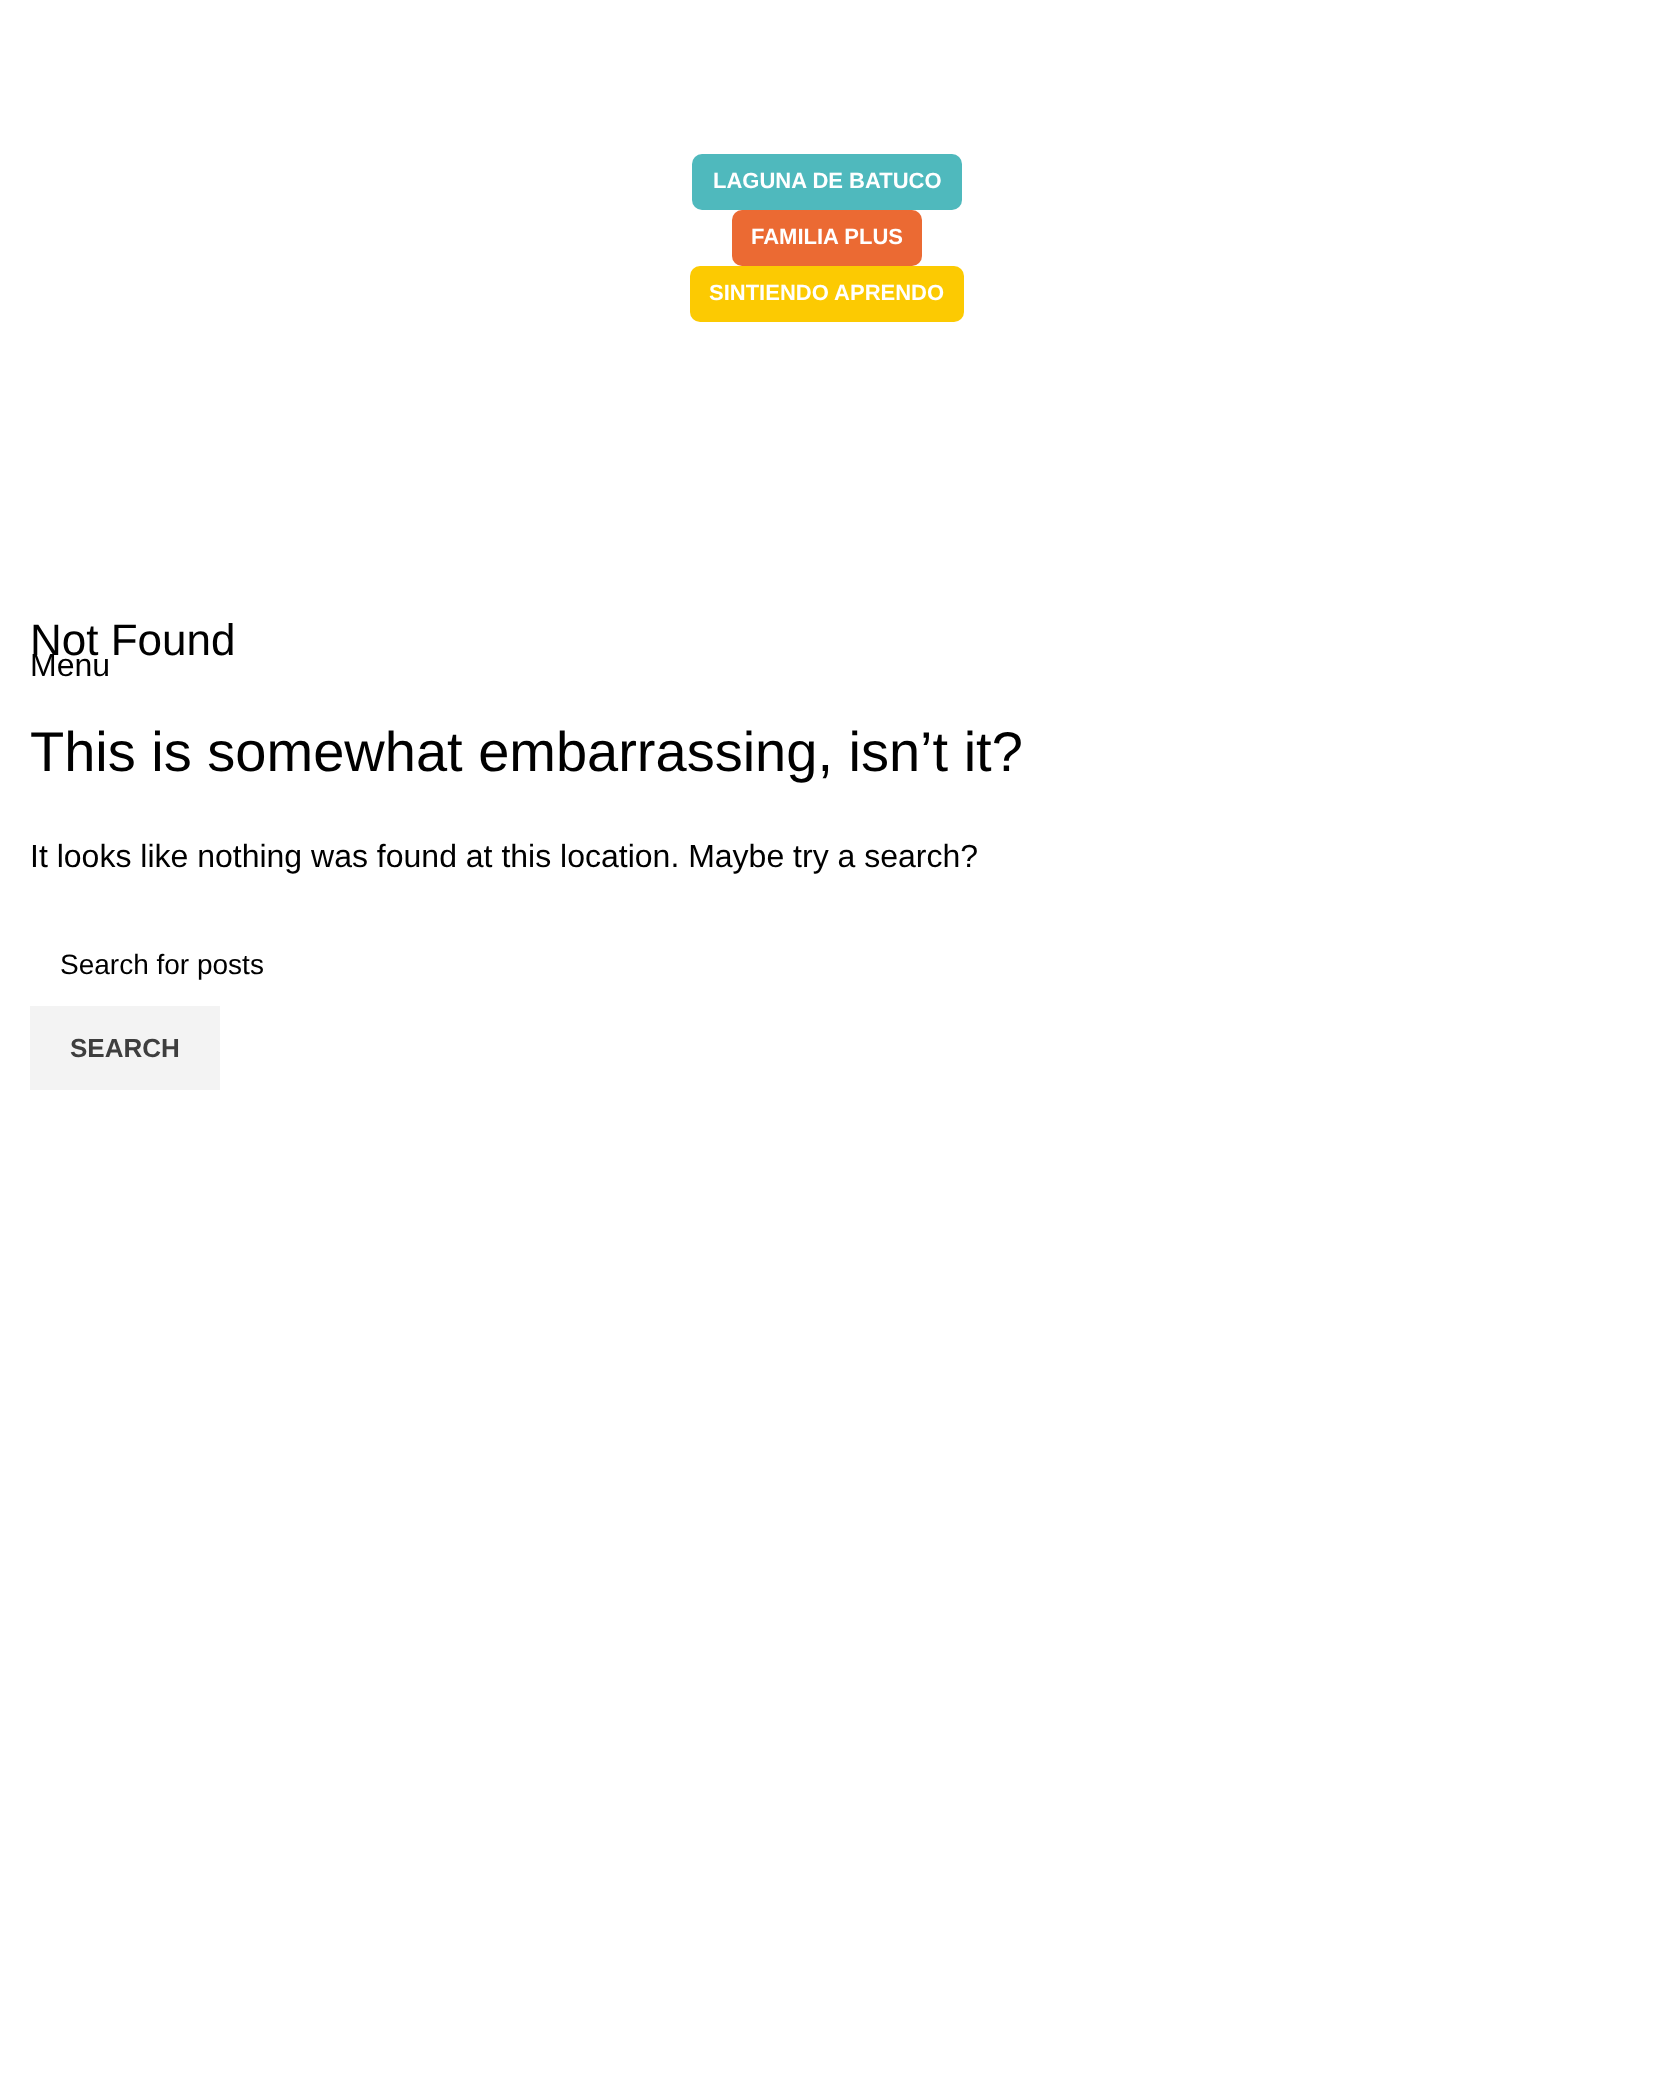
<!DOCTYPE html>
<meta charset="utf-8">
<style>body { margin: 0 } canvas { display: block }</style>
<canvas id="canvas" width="1653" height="2077"></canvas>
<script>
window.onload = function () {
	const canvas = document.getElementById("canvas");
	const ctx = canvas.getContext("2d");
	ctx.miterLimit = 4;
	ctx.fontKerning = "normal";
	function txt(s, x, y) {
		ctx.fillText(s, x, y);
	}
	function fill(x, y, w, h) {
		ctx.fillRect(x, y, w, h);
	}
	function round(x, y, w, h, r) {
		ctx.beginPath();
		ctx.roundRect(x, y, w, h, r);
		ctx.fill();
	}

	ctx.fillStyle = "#FFFFFF";
	fill(0, 0, 1653, 2077);
	ctx.fillStyle = "#4FB9BD";
	round(692, 154, 270, 56, 10);
	ctx.fillStyle = "#EB6A33";
	round(732, 210, 190, 56, 10);
	ctx.fillStyle = "#FCCA02";
	round(690, 266, 274, 56, 10);
	ctx.fillStyle = "#F3F3F3";
	fill(30, 1006, 190, 84);
	ctx.font = "bold 22px Liberation Sans";
	ctx.fillStyle = "#FFFFFF";
	txt("LAGUNA DE BATUCO", 713, 188);
	txt("FAMILIA PLUS", 751, 244);
	txt("SINTIENDO APRENDO", 709, 300);
	ctx.font = "32px Liberation Sans";
	ctx.fillStyle = "#000000";
	txt("Menu", 30, 676);
	ctx.font = "44px Liberation Sans";
	txt("Not Found", 30, 655);
	ctx.font = "56px Liberation Sans";
	txt("This is somewhat embarrassing, isn’t it?", 30, 771);
	ctx.font = "32px Liberation Sans";
	txt("It looks like nothing was found at this location. Maybe try a search?", 30, 867);
	ctx.font = "28px Liberation Sans";
	txt("Search for posts", 60, 974);
	ctx.font = "bold 26px Liberation Sans";
	ctx.fillStyle = "#3E3E3E";
	txt("SEARCH", 70, 1057);
};
</script>
